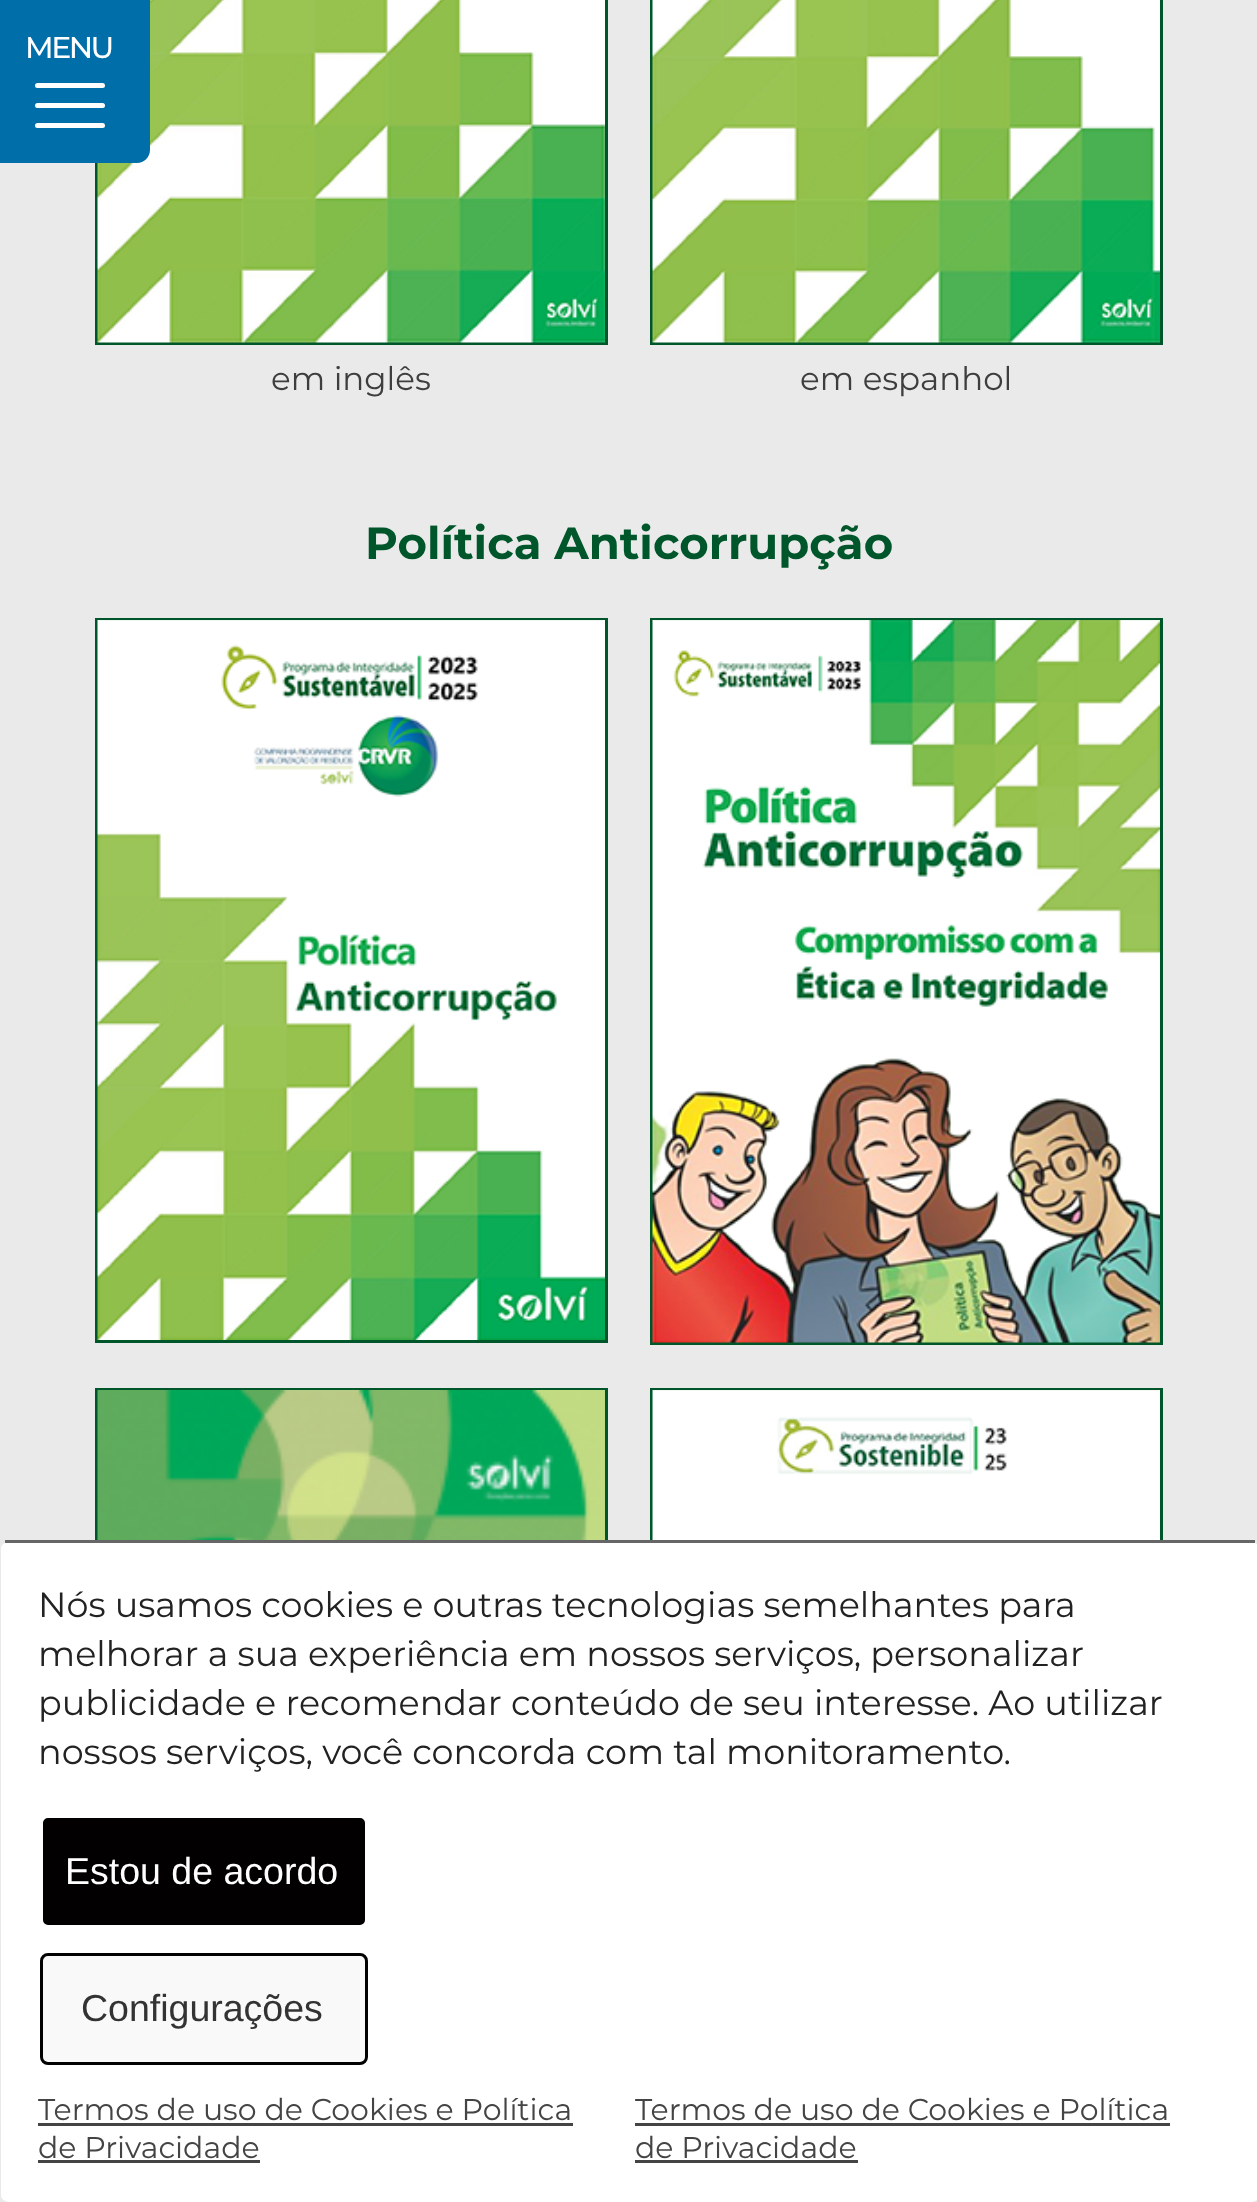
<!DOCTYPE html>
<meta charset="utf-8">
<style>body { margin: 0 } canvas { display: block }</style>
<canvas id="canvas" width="1257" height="2202"></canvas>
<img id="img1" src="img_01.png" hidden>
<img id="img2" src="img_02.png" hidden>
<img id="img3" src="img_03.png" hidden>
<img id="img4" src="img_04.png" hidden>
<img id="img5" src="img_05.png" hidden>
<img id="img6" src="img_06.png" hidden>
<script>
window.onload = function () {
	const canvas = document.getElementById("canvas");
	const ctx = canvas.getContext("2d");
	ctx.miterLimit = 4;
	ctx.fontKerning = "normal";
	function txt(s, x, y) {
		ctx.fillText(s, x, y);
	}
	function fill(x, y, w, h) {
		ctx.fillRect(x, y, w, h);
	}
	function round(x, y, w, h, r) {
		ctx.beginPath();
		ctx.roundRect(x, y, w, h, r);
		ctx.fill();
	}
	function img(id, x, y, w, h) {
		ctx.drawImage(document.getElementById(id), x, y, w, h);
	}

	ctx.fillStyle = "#EAEAEA";
	fill(0, 0, 1257, 2202);
	ctx.strokeStyle = "#00562B";
	ctx.lineWidth = 3;
	ctx.strokeRect(96.5, -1.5, 510, 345);
	img("img1", 97, 0, 508, 343);
	ctx.fillStyle = "#006EA8";
	ctx.beginPath();
	ctx.moveTo(-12, 0);
	ctx.lineTo(150, 0);
	ctx.lineTo(150, 150);
	ctx.bezierCurveTo(150, 157, 144, 163, 137, 163);
	ctx.lineTo(-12, 163);
	ctx.closePath();
	ctx.fill();
	ctx.fillStyle = "#FFFFFF";
	round(35, 103, 70, 5, 2.5);
	round(35, 83, 70, 5, 2.5);
	round(35, 123, 70, 5, 2.5);
	ctx.strokeRect(651.5, -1.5, 510, 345);
	img("img2", 652, 0, 508, 343);
	ctx.strokeRect(96.5, 619.5, 510, 722);
	img("img3", 97, 620, 508, 720);
	ctx.strokeRect(651.5, 619.5, 510, 724);
	img("img4", 652, 620, 508, 723);
	ctx.strokeRect(96.5, 1389.5, 510, 724);
	img("img5", 97, 1390, 508, 150);
	ctx.strokeRect(651.5, 1389.5, 510, 729);
	img("img6", 652, 1390, 508, 150);
	ctx.beginPath();
	ctx.moveTo(9, 1542);
	ctx.lineTo(1251, 1542);
	ctx.bezierCurveTo(1255, 1542, 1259, 1545, 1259, 1548);
	ctx.lineTo(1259, 2195);
	ctx.bezierCurveTo(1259, 2199, 1255, 2202, 1251, 2202);
	ctx.lineTo(9, 2202);
	ctx.bezierCurveTo(5, 2202, 1, 2199, 1, 2195);
	ctx.lineTo(1, 1548);
	ctx.bezierCurveTo(1, 1545, 5, 1542, 9, 1542);
	ctx.closePath();
	ctx.fill();
	ctx.fillStyle = "#666666";
	fill(5, 1540, 1250, 3);
	ctx.fillStyle = "#020000";
	ctx.beginPath();
	ctx.roundRect(41.5, 1816.5, 325, 110, 6.5);
	ctx.fill();
	ctx.strokeStyle = "#FFFFFF";
	ctx.stroke();
	ctx.fillStyle = "#F9F9F9";
	ctx.beginPath();
	ctx.roundRect(41.5, 1954.5, 325, 109, 6.5);
	ctx.fill();
	ctx.strokeStyle = "#020202";
	ctx.stroke();
	ctx.fillStyle = "#444444";
	fill(38, 2123, 535, 3);
	fill(38, 2160, 222, 3);
	fill(635, 2123, 535, 3);
	fill(635, 2160, 223, 3);
	ctx.letterSpacing = "-2.5px";
	ctx.font = "500 30px Montserrat";
	ctx.fillStyle = "#FFFFFF";
	txt("MENU", 25, 58);
	ctx.letterSpacing = "0px";
	ctx.font = "32.5px Montserrat";
	ctx.fillStyle = "#3E3E3E";
	txt("em inglês", 271, 390);
	txt("em espanhol", 800, 390);
	ctx.font = "bold 45px Montserrat";
	ctx.fillStyle = "#00562B";
	txt("Política Anticorrupção", 365, 559);
	ctx.font = "35px Montserrat";
	ctx.fillStyle = "#222222";
	txt("Nós usamos cookies e outras tecnologias semelhantes para", 38, 1617);
	txt("melhorar a sua experiência em nossos serviços, personalizar", 38, 1666);
	txt("publicidade e recomendar conteúdo de seu interesse. Ao utilizar", 38, 1715);
	txt("nossos serviços, você concorda com tal monitoramento.", 38, 1764);
	ctx.font = "37.5px Liberation Sans";
	ctx.fillStyle = "#FFFFFF";
	txt("Estou de acordo", 65, 1884);
	ctx.fillStyle = "#333333";
	txt("Configurações", 81, 2021);
	ctx.font = "30px Montserrat";
	ctx.fillStyle = "#444444";
	txt("Termos de uso de Cookies e Política", 38, 2120);
	txt("de Privacidade", 38, 2158);
	txt("Termos de uso de Cookies e Política", 635, 2120);
	txt("de Privacidade", 635, 2158);
};
</script>
